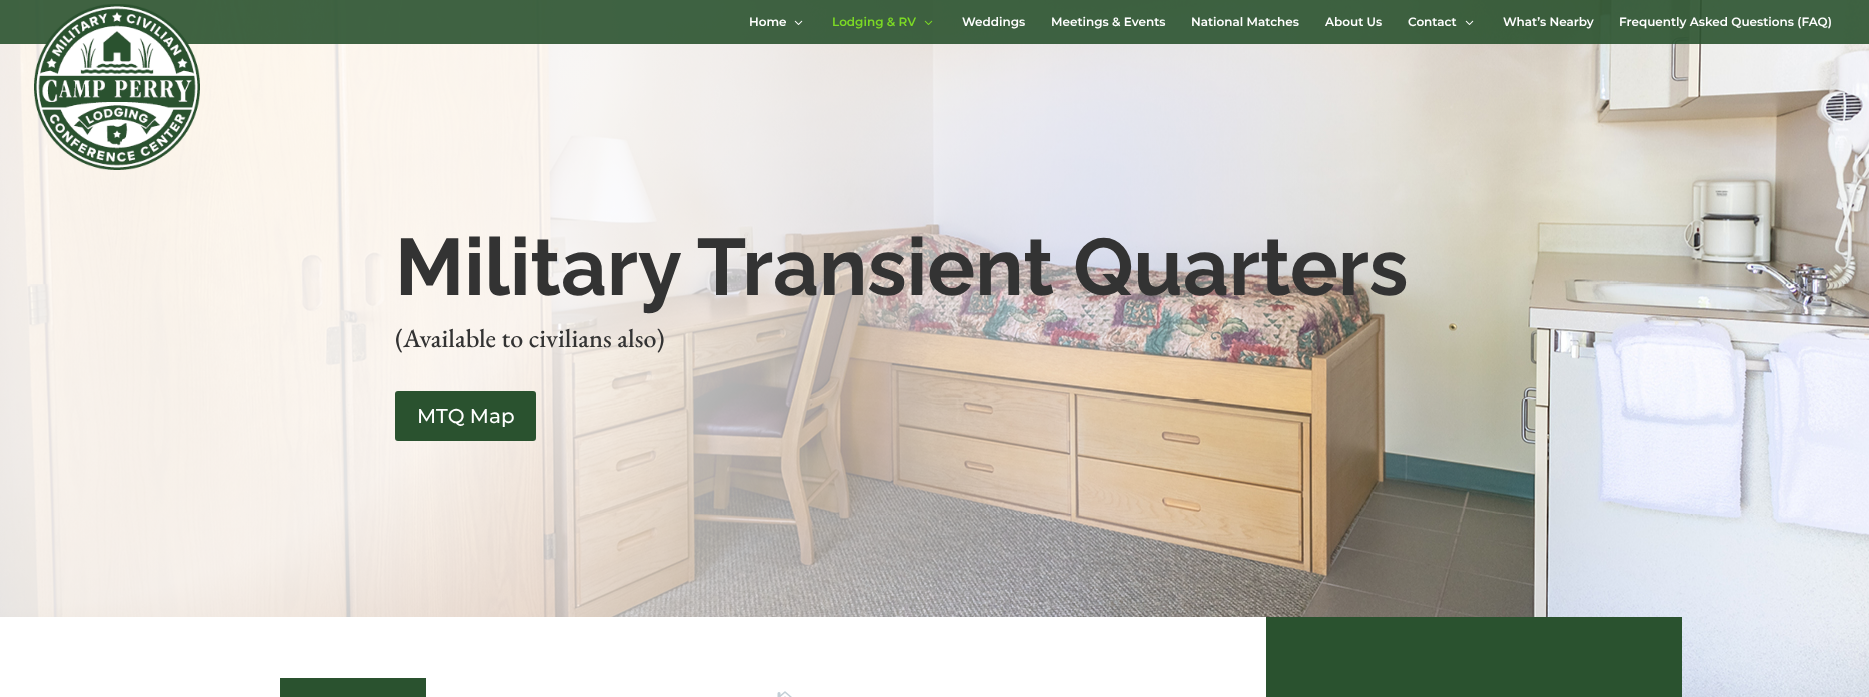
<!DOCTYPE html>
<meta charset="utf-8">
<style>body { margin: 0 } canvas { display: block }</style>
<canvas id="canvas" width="1869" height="697"></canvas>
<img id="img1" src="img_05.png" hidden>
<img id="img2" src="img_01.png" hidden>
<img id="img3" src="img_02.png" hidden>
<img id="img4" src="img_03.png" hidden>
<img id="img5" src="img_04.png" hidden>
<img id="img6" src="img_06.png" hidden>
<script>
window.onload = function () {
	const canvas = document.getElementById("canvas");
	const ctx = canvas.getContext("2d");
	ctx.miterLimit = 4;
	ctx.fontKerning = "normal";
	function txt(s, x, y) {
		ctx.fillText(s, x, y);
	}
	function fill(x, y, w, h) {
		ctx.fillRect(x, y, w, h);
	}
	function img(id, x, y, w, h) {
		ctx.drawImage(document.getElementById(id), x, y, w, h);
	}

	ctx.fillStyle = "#FFFFFF";
	fill(0, 0, 1869, 697);
	img("img1", 0, 0, 1869, 697);
	ctx.fillStyle = "rgba(42, 82, 47, 0.9)";
	fill(0, 0, 1869, 44);
	img("img2", 34, 4, 166, 166);
	img("img3", 794, 20, 9, 5);
	img("img4", 924, 20, 9, 5);
	img("img5", 1465, 20, 9, 5);
	ctx.fillStyle = "#2A522F";
	ctx.beginPath();
	ctx.roundRect(396, 392, 139, 48, 2);
	ctx.fill();
	ctx.strokeStyle = "#2A522F";
	ctx.lineWidth = 2;
	ctx.stroke();
	ctx.fillStyle = "#FFFFFF";
	fill(0, 617, 1266, 80);
	ctx.fillStyle = "#2A522F";
	fill(280, 678, 146, 19);
	img("img6", 777, 691, 15, 6);
	fill(1266, 617, 416, 80);
	ctx.font = "600 12px Montserrat";
	ctx.fillStyle = "#FFFFFF";
	txt("Home", 749, 26);
	ctx.fillStyle = "#7CDA24";
	txt("Lodging & RV", 832, 26);
	ctx.fillStyle = "#FFFFFF";
	txt("Weddings", 962, 26);
	txt("Meetings & Events", 1051, 26);
	txt("National Matches", 1191, 26);
	txt("About Us", 1325, 26);
	txt("Contact", 1408, 26);
	txt("What’s Nearby", 1503, 26);
	txt("Frequently Asked Questions (FAQ)", 1619, 26);
	ctx.font = "bold 80px Raleway";
	ctx.fillStyle = "#333333";
	txt("Military Transient Quarters", 395, 295);
	ctx.font = "500 26px EB Garamond";
	txt("(Available to civilians also)", 395, 347);
	ctx.font = "500 20px Montserrat";
	ctx.fillStyle = "#FFFFFF";
	txt("MTQ Map", 417, 423);
};
</script>
